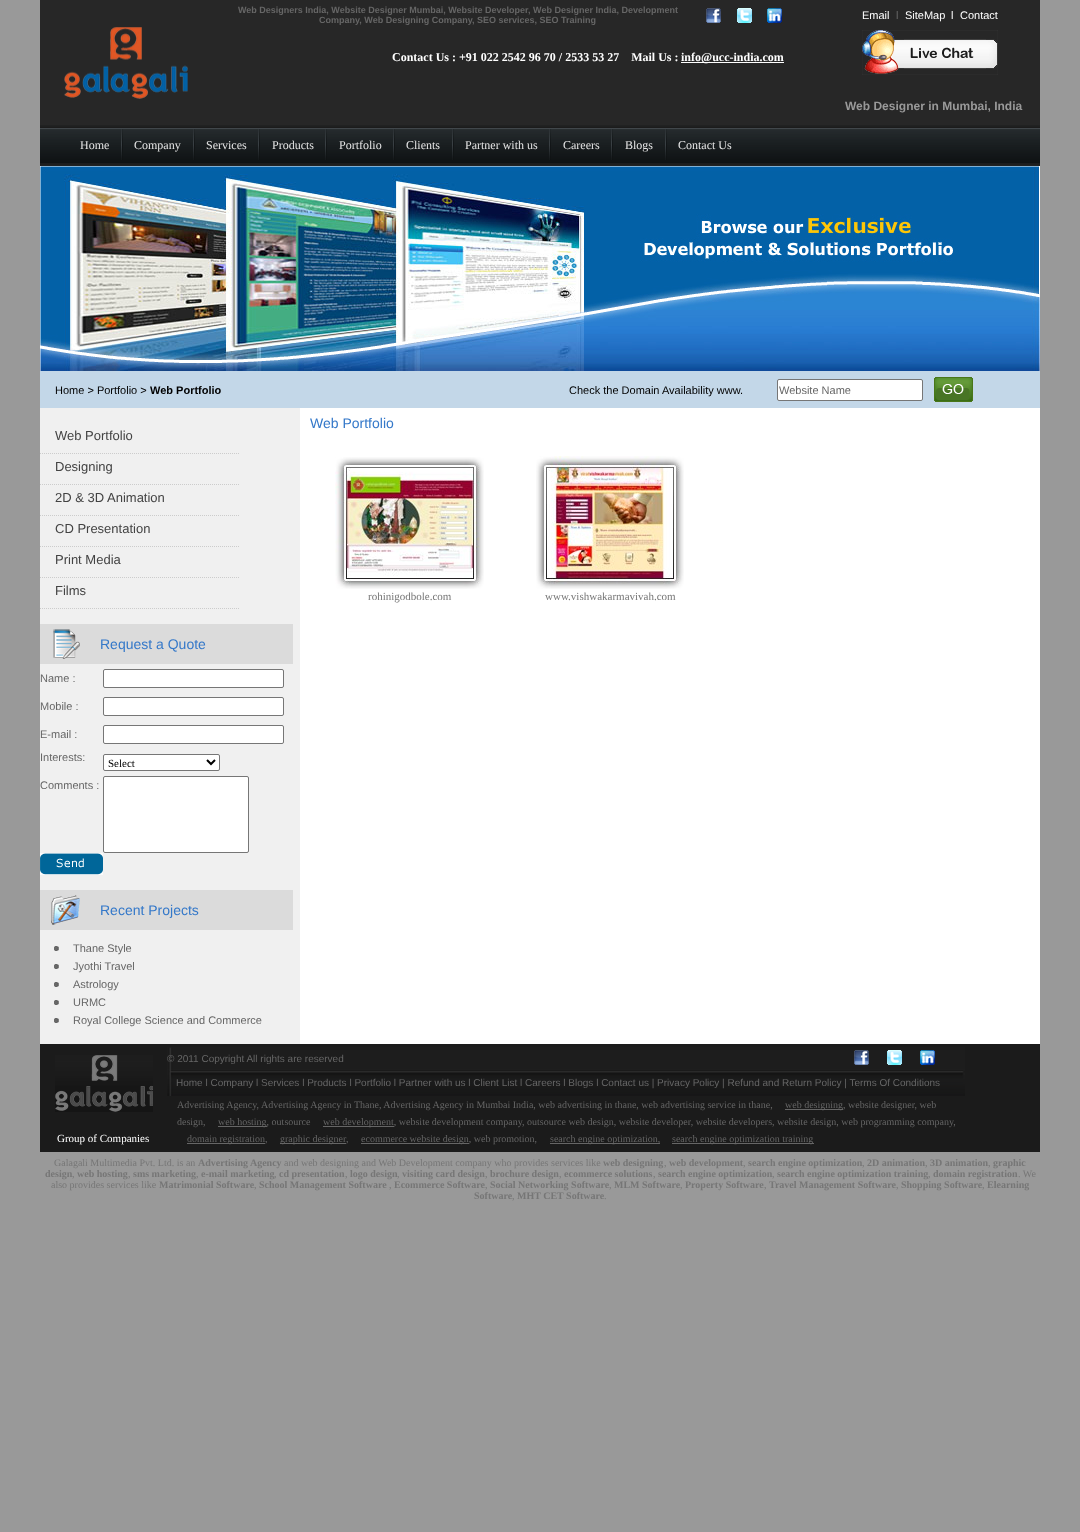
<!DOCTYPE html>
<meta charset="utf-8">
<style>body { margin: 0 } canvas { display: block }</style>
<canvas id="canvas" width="1080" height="1532"></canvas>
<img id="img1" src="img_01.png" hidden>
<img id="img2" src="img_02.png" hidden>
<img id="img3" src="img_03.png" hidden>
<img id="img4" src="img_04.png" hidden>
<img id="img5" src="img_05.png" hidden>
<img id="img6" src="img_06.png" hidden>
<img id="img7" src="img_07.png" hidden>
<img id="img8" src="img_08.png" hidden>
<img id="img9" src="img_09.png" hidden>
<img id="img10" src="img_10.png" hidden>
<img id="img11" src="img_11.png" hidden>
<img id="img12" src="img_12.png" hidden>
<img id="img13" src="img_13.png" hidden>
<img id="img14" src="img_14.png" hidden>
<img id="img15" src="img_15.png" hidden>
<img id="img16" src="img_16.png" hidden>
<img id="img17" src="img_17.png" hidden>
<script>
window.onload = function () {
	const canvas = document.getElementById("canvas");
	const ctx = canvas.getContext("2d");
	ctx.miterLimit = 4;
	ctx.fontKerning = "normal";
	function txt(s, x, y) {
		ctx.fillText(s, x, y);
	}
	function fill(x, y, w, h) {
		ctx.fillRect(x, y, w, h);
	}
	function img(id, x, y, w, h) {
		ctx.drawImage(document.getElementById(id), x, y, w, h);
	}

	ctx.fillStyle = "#999999";
	fill(0, 0, 1080, 1532);
	ctx.fillStyle = "#272727";
	fill(40, 0, 1000, 166);
	img("img1", 64, 27, 124, 72);
	img("img2", 706, 8, 15, 15);
	img("img3", 737, 8, 15, 15);
	img("img4", 767, 8, 15, 15);
	ctx.fillStyle = "#FFFFFF";
	fill(681, 62, 103, 1);
	img("img5", 862, 30, 136, 45);
	img("img6", 40, 125, 1000, 41);
	img("img7", 121, 129, 2, 31);
	img("img7", 193, 129, 2, 31);
	img("img7", 258, 129, 2, 31);
	img("img7", 325, 129, 2, 31);
	img("img7", 393, 129, 2, 31);
	img("img7", 452, 129, 2, 31);
	img("img7", 549, 129, 2, 31);
	img("img7", 611, 129, 2, 31);
	img("img7", 665, 129, 2, 31);
	fill(300, 408, 740, 636);
	img("img8", 40, 166, 1000, 205);
	ctx.fillStyle = "#C3D7E8";
	fill(40, 371, 1000, 37);
	ctx.fillStyle = "#FFFFFF";
	ctx.beginPath();
	ctx.roundRect(777.5, 379.5, 145, 21, 1.5);
	ctx.fill();
	ctx.strokeStyle = "#767676";
	ctx.stroke();
	img("img9", 934, 377, 39, 25);
	ctx.fillStyle = "#F0F0F0";
	fill(40, 408, 260, 636);
	ctx.beginPath();
	ctx.moveTo(40, 453.5);
	ctx.lineTo(240, 453.5);
	ctx.strokeStyle = "#CCCCCC";
	ctx.setLineDash([1, 1]);
	ctx.stroke();
	ctx.beginPath();
	ctx.moveTo(40, 484.5);
	ctx.lineTo(240, 484.5);
	ctx.stroke();
	ctx.beginPath();
	ctx.moveTo(40, 515.5);
	ctx.lineTo(240, 515.5);
	ctx.stroke();
	ctx.beginPath();
	ctx.moveTo(40, 546.5);
	ctx.lineTo(240, 546.5);
	ctx.stroke();
	ctx.beginPath();
	ctx.moveTo(40, 577.5);
	ctx.lineTo(240, 577.5);
	ctx.stroke();
	ctx.beginPath();
	ctx.moveTo(40, 608.5);
	ctx.lineTo(240, 608.5);
	ctx.stroke();
	ctx.fillStyle = "#DBDBDB";
	fill(40, 624, 253, 40);
	img("img10", 53, 629, 27, 30);
	ctx.fillStyle = "#FFFFFF";
	ctx.beginPath();
	ctx.roundRect(103.5, 669.5, 180, 18, 1.5);
	ctx.fill();
	ctx.strokeStyle = "#767676";
	ctx.setLineDash([]);
	ctx.stroke();
	ctx.beginPath();
	ctx.roundRect(103.5, 697.5, 180, 18, 1.5);
	ctx.fill();
	ctx.stroke();
	ctx.beginPath();
	ctx.roundRect(103.5, 725.5, 180, 18, 1.5);
	ctx.fill();
	ctx.stroke();
	ctx.beginPath();
	ctx.roundRect(103.5, 754.5, 116, 16, 1.5);
	ctx.fill();
	ctx.stroke();
	ctx.beginPath();
	ctx.moveTo(207, 760);
	ctx.lineTo(211, 764);
	ctx.lineTo(215, 760);
	ctx.strokeStyle = "#000000";
	ctx.lineWidth = 2;
	ctx.stroke();
	ctx.beginPath();
	ctx.roundRect(103.5, 776.5, 145, 76, 1.5);
	ctx.fill();
	ctx.strokeStyle = "#767676";
	ctx.lineWidth = 1;
	ctx.stroke();
	img("img11", 40, 853, 63, 22);
	ctx.fillStyle = "#DBDBDB";
	fill(40, 890, 253, 40);
	img("img12", 51, 895, 29, 30);
	img("img13", 54, 946, 5, 5);
	img("img13", 54, 964, 5, 5);
	img("img13", 54, 982, 5, 5);
	img("img13", 54, 1000, 5, 5);
	img("img13", 54, 1018, 5, 5);
	img("img14", 335, 457, 149, 132);
	img("img15", 536, 456, 148, 133);
	ctx.fillStyle = "#1B1B1B";
	fill(40, 1044, 1000, 108);
	img("img16", 55, 1055, 98, 57);
	img("img17", 167, 1047, 798, 49);
	img("img2", 854, 1050, 15, 15);
	img("img3", 887, 1050, 15, 15);
	img("img4", 920, 1050, 15, 15);
	ctx.fillStyle = "#666666";
	fill(785, 1109, 58, 1);
	fill(218, 1126, 49, 1);
	fill(323, 1126, 71, 1);
	fill(187, 1143, 78, 1);
	fill(280, 1143, 66, 1);
	fill(361, 1143, 108, 1);
	fill(550, 1143, 110, 1);
	fill(672, 1143, 142, 1);
	ctx.font = "bold 9px Liberation Sans";
	txt("Web Designers India, Website Designer Mumbai, Website Developer, Web Designer India, Development", 238, 13);
	txt("Company, Web Designing Company, SEO services, SEO Training", 319, 23);
	ctx.font = "11px Liberation Sans";
	ctx.fillStyle = "#FFFFFF";
	txt("Email", 862, 19);
	ctx.fillStyle = "#666666";
	txt("l", 896, 19);
	ctx.fillStyle = "#FFFFFF";
	txt("SiteMap", 905, 19);
	txt("l", 951, 19);
	txt("Contact", 960, 19);
	ctx.font = "bold 12px Liberation Serif";
	txt("Contact Us : +91 022 2542 96 70 / 2533 53 27    Mail Us :", 392, 61);
	txt("info@ucc-india.com", 681, 61);
	ctx.font = "bold 12px Liberation Sans";
	ctx.fillStyle = "#999999";
	txt("Web Designer in Mumbai, India", 845, 110);
	ctx.font = "12px Liberation Serif";
	ctx.fillStyle = "#E5E5E5";
	txt("Home", 80, 149);
	txt("Company", 134, 149);
	txt("Services", 206, 149);
	txt("Products", 272, 149);
	txt("Portfolio", 339, 149);
	txt("Clients", 406, 149);
	txt("Partner with us", 465, 149);
	txt("Careers", 563, 149);
	txt("Blogs", 625, 149);
	txt("Contact Us", 678, 149);
	ctx.font = "11px Liberation Sans";
	ctx.fillStyle = "#000000";
	txt("Home > Portfolio >", 55, 394);
	ctx.font = "bold 11px Liberation Sans";
	txt("Web Portfolio", 150, 394);
	ctx.font = "11px Liberation Sans";
	txt("Check the Domain Availability www.", 569, 394);
	ctx.fillStyle = "#666666";
	txt("Website Name", 779, 394);
	ctx.font = "13px Liberation Sans";
	ctx.fillStyle = "#434343";
	txt("Web Portfolio", 55, 440);
	txt("Designing", 55, 471);
	txt("2D & 3D Animation", 55, 502);
	txt("CD Presentation", 55, 533);
	txt("Print Media", 55, 564);
	txt("Films", 55, 595);
	ctx.font = "14px Liberation Sans";
	ctx.fillStyle = "#3478C9";
	txt("Request a Quote", 100, 649);
	ctx.font = "11px Liberation Sans";
	ctx.fillStyle = "#666666";
	txt("Name :", 40, 682);
	txt("Mobile :", 40, 710);
	txt("E-mail :", 40, 738);
	txt("Interests:", 40, 761);
	ctx.font = "11px Liberation Serif";
	ctx.fillStyle = "#000000";
	txt("Select", 108, 767);
	ctx.font = "11px Liberation Sans";
	ctx.fillStyle = "#666666";
	txt("Comments :", 40, 789);
	ctx.font = "14px Liberation Sans";
	ctx.fillStyle = "#3478C9";
	txt("Recent Projects", 100, 915);
	ctx.font = "11px Liberation Sans";
	ctx.fillStyle = "#666666";
	txt("Thane Style", 73, 952);
	txt("Jyothi Travel", 73, 970);
	txt("Astrology", 73, 988);
	txt("URMC", 73, 1006);
	txt("Royal College Science and Commerce", 73, 1024);
	ctx.font = "14px Liberation Sans";
	ctx.fillStyle = "#3478C9";
	txt("Web Portfolio", 310, 428);
	ctx.font = "11px Liberation Serif";
	ctx.fillStyle = "#767676";
	txt("rohinigodbole.com", 368, 600);
	txt("www.vishwakarmavivah.com", 545, 600);
	ctx.fillStyle = "#FFFFFF";
	txt("Group of Companies", 57, 1142);
	ctx.font = "10px Liberation Sans";
	ctx.fillStyle = "#666666";
	txt("© 2011 Copyright All rights are reserved", 167, 1062);
	txt("Home l Company l Services l Products l Portfolio l Partner with us l Client List l Careers l Blogs l Contact us | Privacy Policy | Refund and Return Policy | Terms Of Conditions", 176, 1086);
	ctx.font = "10px Liberation Serif";
	txt("Advertising Agency, Advertising Agency in Thane, Advertising Agency in Mumbai India, web advertising in thane, web advertising service in thane,", 177, 1108);
	txt("web designing, website designer, web", 785, 1108);
	txt("design,", 177, 1125);
	txt("web hosting, outsource", 218, 1125);
	txt("web development, website development company, outsource web design, website developer, website developers, website design, web programming company,", 323, 1125);
	txt("domain registration,", 187, 1142);
	txt("graphic designer", 280, 1142);
	txt(",", 346, 1142);
	txt("ecommerce website design, web promotion,", 361, 1142);
	txt("search engine optimization,", 550, 1142);
	txt("search engine optimization training", 672, 1142);
	ctx.fillStyle = "#767676";
	txt("Galagali Multimedia Pvt. Ltd. is an", 54, 1166);
	ctx.font = "bold 10px Liberation Serif";
	txt("Advertising Agency", 198, 1166);
	ctx.font = "10px Liberation Serif";
	txt("and web designing and Web Development company who provides services like", 284, 1166);
	ctx.font = "bold 10px Liberation Serif";
	txt("web designing", 603, 1166);
	ctx.font = "10px Liberation Serif";
	txt(",", 664, 1166);
	ctx.font = "bold 10px Liberation Serif";
	txt("web development", 669, 1166);
	ctx.font = "10px Liberation Serif";
	txt(",", 743, 1166);
	ctx.font = "bold 10px Liberation Serif";
	txt("search engine optimization", 748, 1166);
	ctx.font = "10px Liberation Serif";
	txt(",", 862, 1166);
	ctx.font = "bold 10px Liberation Serif";
	txt("2D animation", 867, 1166);
	ctx.font = "10px Liberation Serif";
	txt(",", 925, 1166);
	ctx.font = "bold 10px Liberation Serif";
	txt("3D animation", 930, 1166);
	ctx.font = "10px Liberation Serif";
	txt(",", 988, 1166);
	ctx.font = "bold 10px Liberation Serif";
	txt("graphic", 993, 1166);
	txt("design", 45, 1177);
	ctx.font = "10px Liberation Serif";
	txt(",", 72, 1177);
	ctx.font = "bold 10px Liberation Serif";
	txt("web hosting", 77, 1177);
	ctx.font = "10px Liberation Serif";
	txt(",", 128, 1177);
	ctx.font = "bold 10px Liberation Serif";
	txt("sms marketing", 133, 1177);
	ctx.font = "10px Liberation Serif";
	txt(",", 196, 1177);
	ctx.font = "bold 10px Liberation Serif";
	txt("e-mail marketing", 201, 1177);
	ctx.font = "10px Liberation Serif";
	txt(",", 274, 1177);
	ctx.font = "bold 10px Liberation Serif";
	txt("cd presentation", 279, 1177);
	ctx.font = "10px Liberation Serif";
	txt(",", 345, 1177);
	ctx.font = "bold 10px Liberation Serif";
	txt("logo design", 350, 1177);
	ctx.font = "10px Liberation Serif";
	txt(",", 397, 1177);
	ctx.font = "bold 10px Liberation Serif";
	txt("visiting card design", 402, 1177);
	ctx.font = "10px Liberation Serif";
	txt(",", 485, 1177);
	ctx.font = "bold 10px Liberation Serif";
	txt("brochure design", 490, 1177);
	ctx.font = "10px Liberation Serif";
	txt(",", 559, 1177);
	ctx.font = "bold 10px Liberation Serif";
	txt("ecommerce solutions", 564, 1177);
	ctx.font = "10px Liberation Serif";
	txt(",", 653, 1177);
	ctx.font = "bold 10px Liberation Serif";
	txt("search engine optimization", 658, 1177);
	ctx.font = "10px Liberation Serif";
	txt(",", 772, 1177);
	ctx.font = "bold 10px Liberation Serif";
	txt("search engine optimization training", 777, 1177);
	ctx.font = "10px Liberation Serif";
	txt(",", 928, 1177);
	ctx.font = "bold 10px Liberation Serif";
	txt("domain registration", 933, 1177);
	ctx.font = "10px Liberation Serif";
	txt(". We", 1018, 1177);
	txt("also provides services like", 51, 1188);
	ctx.font = "bold 10px Liberation Serif";
	txt("Matrimonial Software", 159, 1188);
	ctx.font = "10px Liberation Serif";
	txt(",", 254, 1188);
	ctx.font = "bold 10px Liberation Serif";
	txt("School Management Software", 259, 1188);
	ctx.font = "10px Liberation Serif";
	txt(",", 389, 1188);
	ctx.font = "bold 10px Liberation Serif";
	txt("Ecommerce Software", 394, 1188);
	ctx.font = "10px Liberation Serif";
	txt(",", 485, 1188);
	ctx.font = "bold 10px Liberation Serif";
	txt("Social Networking Software", 490, 1188);
	ctx.font = "10px Liberation Serif";
	txt(",", 609, 1188);
	ctx.font = "bold 10px Liberation Serif";
	txt("MLM Software", 614, 1188);
	ctx.font = "10px Liberation Serif";
	txt(",", 680, 1188);
	ctx.font = "bold 10px Liberation Serif";
	txt("Property Software", 685, 1188);
	ctx.font = "10px Liberation Serif";
	txt(",", 764, 1188);
	ctx.font = "bold 10px Liberation Serif";
	txt("Travel Management Software", 769, 1188);
	ctx.font = "10px Liberation Serif";
	txt(",", 896, 1188);
	ctx.font = "bold 10px Liberation Serif";
	txt("Shopping Software", 901, 1188);
	ctx.font = "10px Liberation Serif";
	txt(",", 982, 1188);
	ctx.font = "bold 10px Liberation Serif";
	txt("Elearning", 987, 1188);
	txt("Software", 474, 1199);
	ctx.font = "10px Liberation Serif";
	txt(",", 512, 1199);
	ctx.font = "bold 10px Liberation Serif";
	txt("MHT CET Software", 517, 1199);
	ctx.font = "10px Liberation Serif";
	txt(".", 604, 1199);
};
</script>
